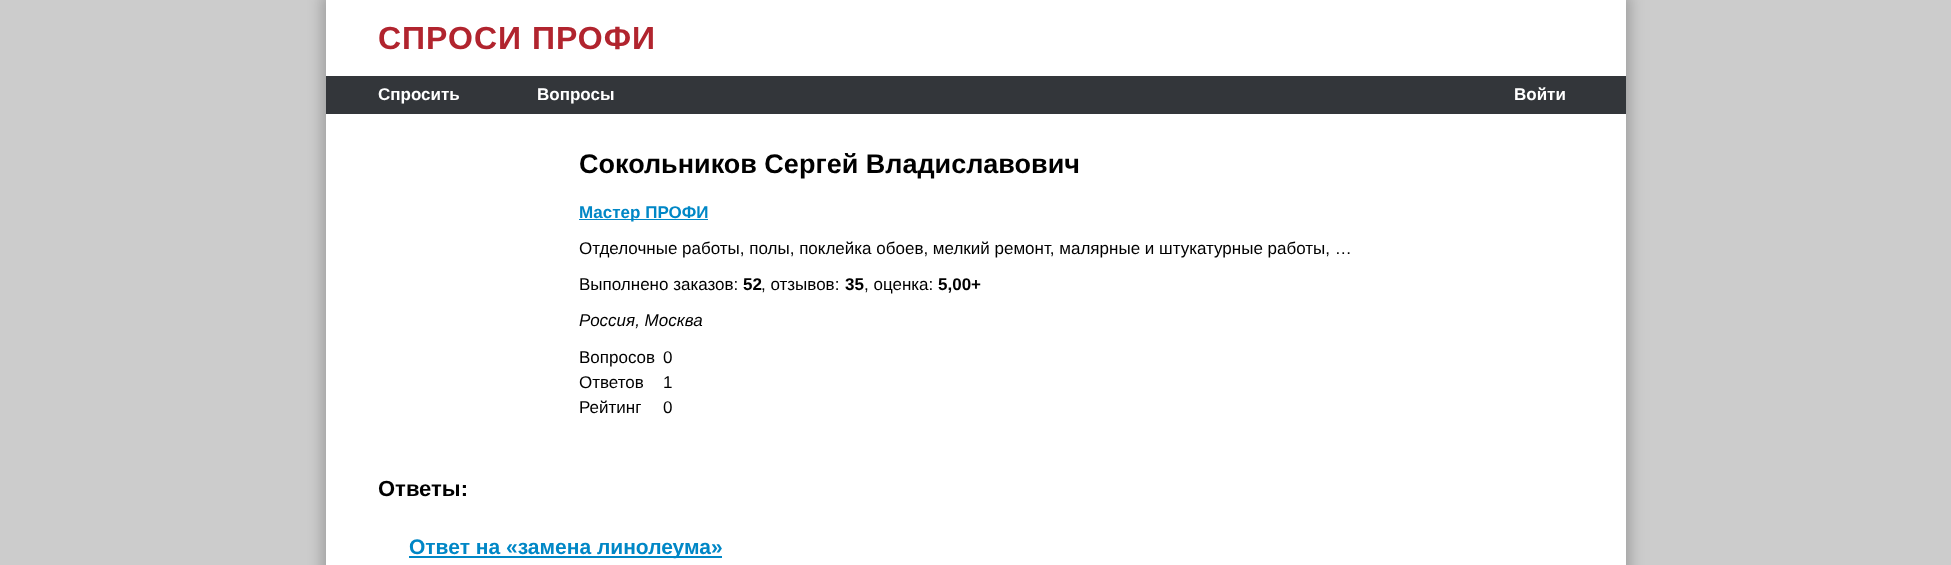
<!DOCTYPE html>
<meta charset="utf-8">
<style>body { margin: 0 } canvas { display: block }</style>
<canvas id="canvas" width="1951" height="565"></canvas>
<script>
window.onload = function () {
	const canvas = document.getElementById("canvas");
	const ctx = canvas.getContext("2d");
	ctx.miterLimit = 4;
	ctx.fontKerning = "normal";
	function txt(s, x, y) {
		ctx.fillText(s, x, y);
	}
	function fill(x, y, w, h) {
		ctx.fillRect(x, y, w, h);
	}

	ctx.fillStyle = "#CCCCCC";
	fill(0, 0, 1951, 565);
	ctx.fillStyle = "rgba(0, 0, 0, 0.2)";
	ctx.filter = "blur(6.5px)";
	ctx.beginPath();
	ctx.rect(321, -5, 1310, 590);
	ctx.fill();
	ctx.filter = "none";
	ctx.fillStyle = "#FFFFFF";
	fill(326, 0, 1300, 565);
	ctx.fillStyle = "#33363A";
	fill(326, 76, 1300, 38);
	ctx.fillStyle = "#0087C6";
	fill(579, 219, 129, 1);
	fill(409, 556, 313, 2);
	ctx.letterSpacing = "1px";
	ctx.font = "bold 32px Liberation Sans";
	ctx.fillStyle = "#B1242E";
	txt("СПРОСИ ПРОФИ", 378, 49);
	ctx.letterSpacing = "0px";
	ctx.font = "bold 17px Liberation Sans";
	ctx.fillStyle = "#FFFFFF";
	txt("Спросить", 378, 100);
	txt("Вопросы", 537, 100);
	txt("Войти", 1514, 100);
	ctx.font = "bold 27px Liberation Sans";
	ctx.fillStyle = "#000000";
	txt("Сокольников Сергей Владиславович", 579, 173);
	ctx.font = "bold 17px Liberation Sans";
	ctx.fillStyle = "#0087C6";
	txt("Мастер ПРОФИ", 579, 218);
	ctx.font = "17px Liberation Sans";
	ctx.fillStyle = "#000000";
	txt("Отделочные работы, полы, поклейка обоев, мелкий ремонт, малярные и штукатурные работы, …", 579, 254);
	txt("Выполнено заказов:", 579, 290);
	ctx.font = "bold 17px Liberation Sans";
	txt("52", 743, 290);
	ctx.font = "17px Liberation Sans";
	txt(", отзывов:", 761, 290);
	ctx.font = "bold 17px Liberation Sans";
	txt("35", 845, 290);
	ctx.font = "17px Liberation Sans";
	txt(", оценка:", 864, 290);
	ctx.font = "bold 17px Liberation Sans";
	txt("5,00+", 938, 290);
	ctx.font = "italic 17px Liberation Sans";
	txt("Россия, Москва", 579, 326);
	ctx.font = "17px Liberation Sans";
	txt("Вопросов", 579, 363);
	txt("0", 663, 363);
	txt("Ответов", 579, 388);
	txt("1", 663, 388);
	txt("Рейтинг", 579, 413);
	txt("0", 663, 413);
	ctx.font = "bold 22px Liberation Sans";
	txt("Ответы:", 378, 496);
	ctx.font = "bold 21px Liberation Sans";
	ctx.fillStyle = "#0087C6";
	txt("Ответ на «замена линолеума»", 409, 554);
};
</script>
